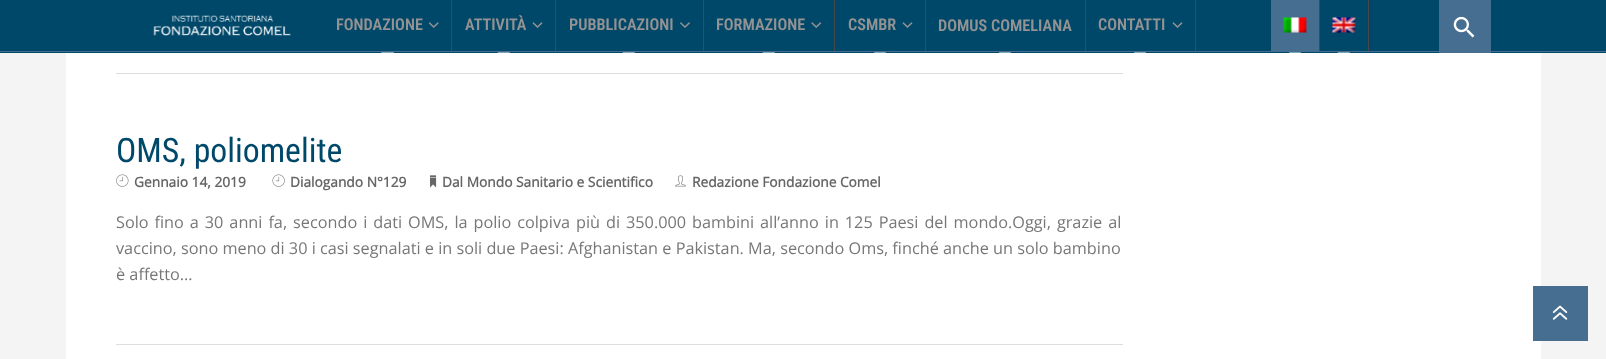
<!DOCTYPE html>
<meta charset="utf-8">
<style>body { margin: 0 } canvas { display: block }</style>
<canvas id="canvas" width="1606" height="359"></canvas>
<img id="img1" src="img_01.png" hidden>
<img id="img2" src="img_02.png" hidden>
<img id="img3" src="img_03.png" hidden>
<img id="img4" src="img_04.png" hidden>
<img id="img5" src="img_05.png" hidden>
<img id="img6" src="img_06.png" hidden>
<img id="img7" src="img_07.png" hidden>
<img id="img8" src="img_08.png" hidden>
<img id="img9" src="img_09.png" hidden>
<img id="img10" src="img_10.png" hidden>
<img id="img11" src="img_11.png" hidden>
<img id="img12" src="img_12.png" hidden>
<img id="img13" src="img_13.png" hidden>
<script>
window.onload = function () {
	const canvas = document.getElementById("canvas");
	const ctx = canvas.getContext("2d");
	ctx.miterLimit = 4;
	ctx.fontKerning = "normal";
	function txt(s, x, y) {
		ctx.fillText(s, x, y);
	}
	function fill(x, y, w, h) {
		ctx.fillRect(x, y, w, h);
	}
	function img(id, x, y, w, h) {
		ctx.drawImage(document.getElementById(id), x, y, w, h);
	}

	ctx.fillStyle = "#F4F4F4";
	fill(0, 0, 1606, 359);
	ctx.fillStyle = "#00486A";
	fill(0, 0, 1606, 53);
	ctx.fillStyle = "#456E90";
	fill(0, 51, 1606, 1);
	img("img1", 153, 15, 138, 21);
	ctx.fillStyle = "#494848";
	fill(451, 0, 1, 51);
	img("img2", 428, 22, 11, 6);
	ctx.fillStyle = "#FFFFFF";
	fill(66, 53, 1475, 306);
	ctx.beginPath();
	ctx.moveTo(381, 52.5);
	ctx.lineTo(394, 52.5);
	ctx.lineTo(387.5, 60);
	ctx.closePath();
	ctx.fill();
	ctx.fillStyle = "#494848";
	fill(555, 0, 1, 51);
	img("img3", 532, 22, 11, 6);
	ctx.fillStyle = "#FFFFFF";
	ctx.beginPath();
	ctx.moveTo(497.5, 52.5);
	ctx.lineTo(510, 52.5);
	ctx.lineTo(504, 60);
	ctx.closePath();
	ctx.fill();
	ctx.fillStyle = "#494848";
	fill(703, 0, 1, 51);
	img("img4", 680, 22, 10, 6);
	ctx.fillStyle = "#FFFFFF";
	ctx.beginPath();
	ctx.moveTo(622.5, 52.5);
	ctx.lineTo(635, 52.5);
	ctx.lineTo(629, 60);
	ctx.closePath();
	ctx.fill();
	ctx.fillStyle = "#494848";
	fill(834, 0, 1, 51);
	img("img5", 811, 22, 11, 6);
	ctx.fillStyle = "#FFFFFF";
	ctx.beginPath();
	ctx.moveTo(762.5, 52.5);
	ctx.lineTo(775, 52.5);
	ctx.lineTo(769, 60);
	ctx.closePath();
	ctx.fill();
	ctx.fillStyle = "#494848";
	fill(925, 0, 1, 51);
	img("img3", 902, 22, 11, 6);
	ctx.fillStyle = "#FFFFFF";
	ctx.beginPath();
	ctx.moveTo(874, 52.5);
	ctx.lineTo(886, 52.5);
	ctx.lineTo(880, 60);
	ctx.closePath();
	ctx.fill();
	ctx.fillStyle = "#494848";
	fill(1085, 0, 1, 51);
	ctx.fillStyle = "#FFFFFF";
	ctx.beginPath();
	ctx.moveTo(999, 52.5);
	ctx.lineTo(1011, 52.5);
	ctx.lineTo(1005, 60);
	ctx.closePath();
	ctx.fill();
	ctx.fillStyle = "#494848";
	fill(1195, 0, 1, 51);
	img("img3", 1172, 22, 11, 6);
	ctx.fillStyle = "#FFFFFF";
	ctx.beginPath();
	ctx.moveTo(1134, 52.5);
	ctx.lineTo(1146, 52.5);
	ctx.lineTo(1140, 60);
	ctx.closePath();
	ctx.fill();
	ctx.fillStyle = "#456E90";
	fill(1271, 0, 48, 51);
	ctx.fillStyle = "#494848";
	fill(1319, 0, 1, 51);
	img("img6", 1283, 17, 24, 16);
	ctx.fillStyle = "#FFFFFF";
	ctx.beginPath();
	ctx.moveTo(1289, 52.5);
	ctx.lineTo(1301, 52.5);
	ctx.lineTo(1295, 60);
	ctx.closePath();
	ctx.fill();
	ctx.fillStyle = "#494848";
	fill(1368, 0, 1, 51);
	img("img7", 1332, 17, 24, 16);
	ctx.fillStyle = "#FFFFFF";
	ctx.beginPath();
	ctx.moveTo(1337.5, 52.5);
	ctx.lineTo(1350, 52.5);
	ctx.lineTo(1344, 60);
	ctx.closePath();
	ctx.fill();
	ctx.fillStyle = "#456E90";
	fill(1439, 0, 52, 53);
	img("img8", 1453, 16, 22, 22);
	ctx.fillStyle = "#DDDDDD";
	fill(116, 73, 1007, 1);
	img("img9", 116, 174, 13, 13);
	img("img10", 272, 174, 13, 13);
	img("img11", 430, 175, 7, 13);
	img("img12", 675, 175, 11, 12);
	fill(116, 344, 1007, 1);
	ctx.fillStyle = "#456E90";
	fill(1533, 286, 55, 55);
	img("img13", 1552, 305, 16, 15);
	ctx.font = "600 16.25px Roboto Condensed";
	ctx.fillStyle = "#949393";
	txt("FONDAZIONE", 336, 30);
	txt("ATTIVITÀ", 465, 30);
	txt("PUBBLICAZIONI", 569, 30);
	txt("FORMAZIONE", 716, 30);
	txt("CSMBR", 848, 30);
	txt("DOMUS COMELIANA", 938, 31);
	txt("CONTATTI", 1098, 30);
	ctx.font = "33.75px Roboto Condensed";
	ctx.fillStyle = "#00486A";
	txt("OMS, poliomelite", 116, 162);
	ctx.font = "bold 13.75px Open Sans";
	ctx.fillStyle = "#666666";
	txt("Gennaio 14, 2019", 134, 187);
	txt("Dialogando N°129", 290, 187);
	txt("Dal Mondo Sanitario e Scientifico", 442, 187);
	txt("Redazione Fondazione Comel", 692, 187);
	ctx.wordSpacing = "1.75px";
	ctx.font = "16.25px Open Sans";
	ctx.fillStyle = "#777777";
	txt("Solo fino a 30 anni fa, secondo i dati OMS, la polio colpiva più di 350.000 bambini all’anno in 125 Paesi del mondo.Oggi, grazie al", 116, 228);
	ctx.wordSpacing = "0px";
	txt("vaccino, sono meno di 30 i casi segnalati e in soli due Paesi: Afghanistan e Pakistan. Ma, secondo Oms, finché anche un solo bambino", 116, 254);
	txt("è affetto...", 116, 280);
};
</script>
